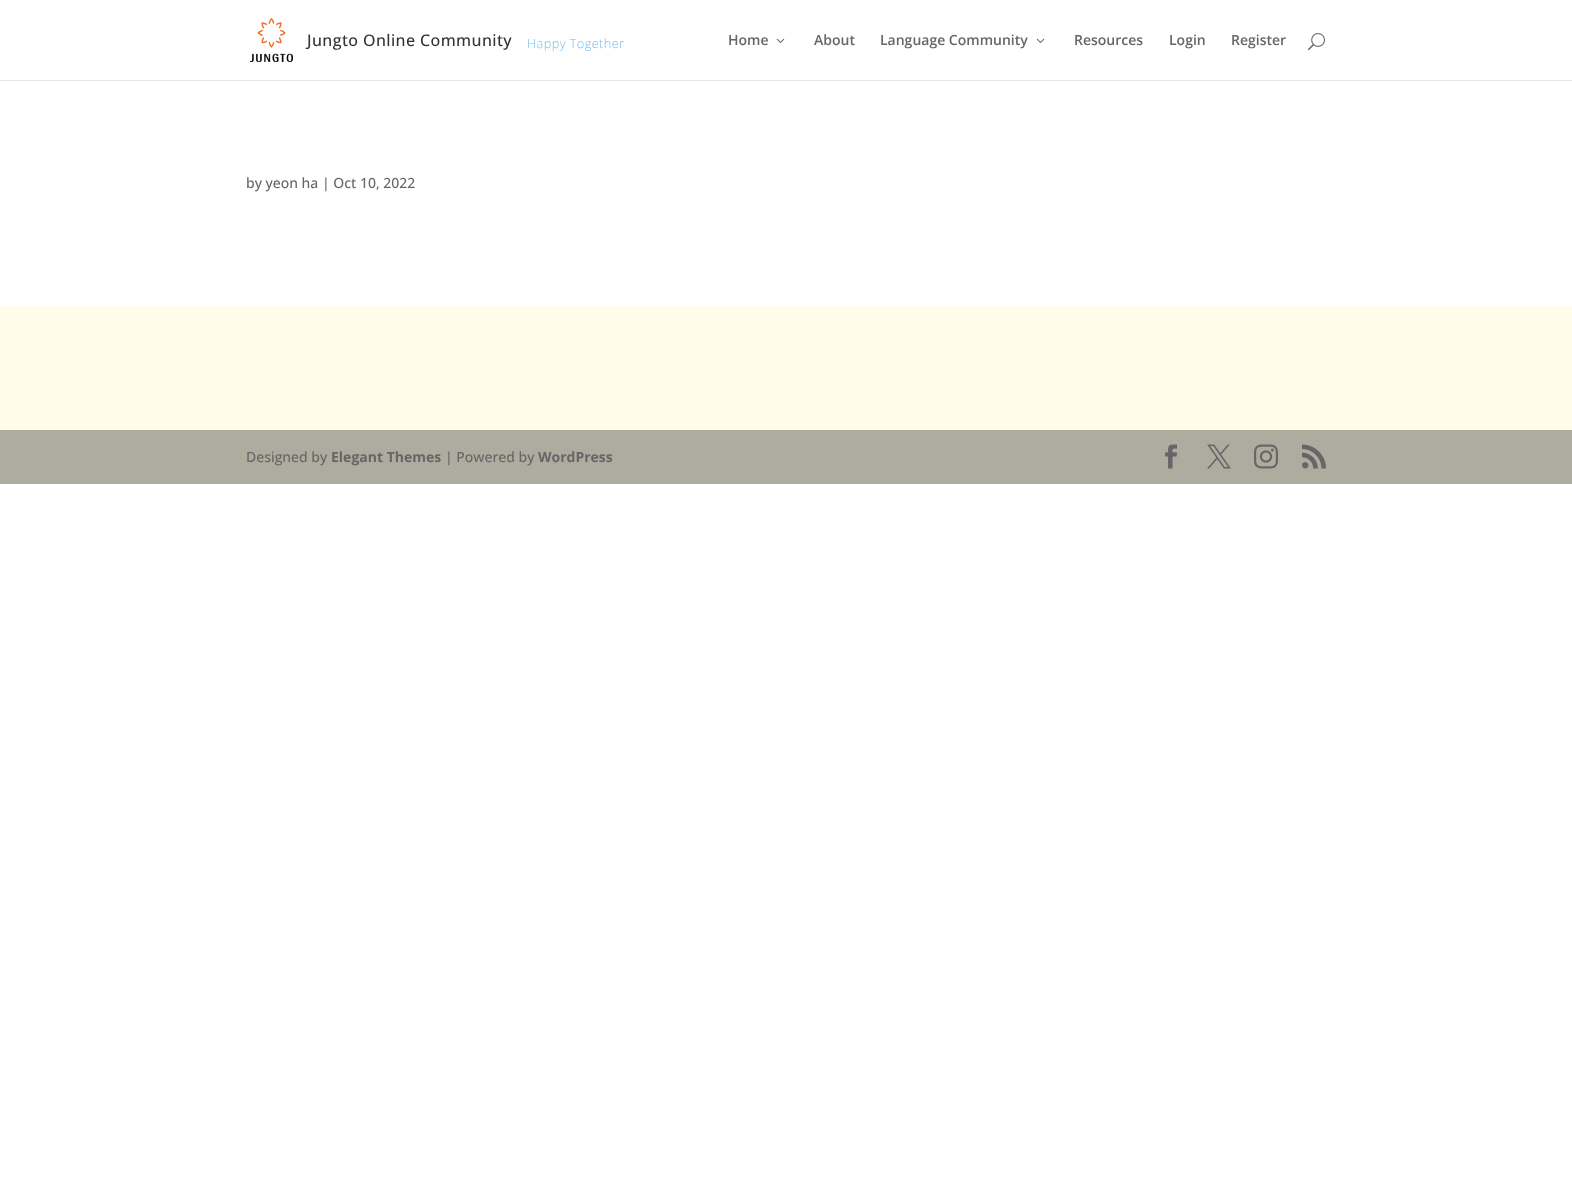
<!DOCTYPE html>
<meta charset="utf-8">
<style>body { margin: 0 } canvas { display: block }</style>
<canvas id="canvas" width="1572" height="1185"></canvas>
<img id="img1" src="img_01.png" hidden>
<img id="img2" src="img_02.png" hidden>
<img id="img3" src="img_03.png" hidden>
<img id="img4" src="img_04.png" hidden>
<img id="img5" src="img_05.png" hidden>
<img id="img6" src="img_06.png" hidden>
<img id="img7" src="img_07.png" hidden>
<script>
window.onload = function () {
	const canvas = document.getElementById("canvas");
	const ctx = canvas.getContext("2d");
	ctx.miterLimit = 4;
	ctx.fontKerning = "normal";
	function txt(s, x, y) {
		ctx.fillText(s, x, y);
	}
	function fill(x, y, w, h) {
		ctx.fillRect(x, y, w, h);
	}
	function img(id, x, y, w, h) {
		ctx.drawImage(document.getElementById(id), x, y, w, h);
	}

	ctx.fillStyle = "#FFFFFF";
	fill(0, 0, 1572, 1185);
	ctx.fillStyle = "#E6E6E6";
	fill(0, 80, 1572, 1);
	img("img1", 250, 18, 43, 44);
	img("img2", 776, 38, 9, 5);
	img("img2", 1036, 38, 9, 5);
	img("img3", 1308, 33, 17, 18);
	ctx.fillStyle = "#FFFCEA";
	fill(0, 306, 1572, 124);
	ctx.fillStyle = "#AEAB9F";
	fill(0, 430, 1572, 54);
	img("img4", 1165, 444, 12, 25);
	img("img5", 1207, 444, 24, 25);
	img("img6", 1254, 444, 24, 25);
	img("img7", 1302, 444, 24, 25);
	ctx.letterSpacing = "0.4px";
	ctx.font = "500 16px Open Sans";
	ctx.fillStyle = "#333333";
	txt("Jungto Online Community", 307, 46);
	ctx.font = "300 12.75px Open Sans";
	ctx.fillStyle = "#6DBFF6";
	txt("Happy Together", 527, 48);
	ctx.letterSpacing = "0px";
	ctx.font = "600 14px Open Sans";
	ctx.fillStyle = "#666666";
	txt("Home", 728, 45);
	txt("About", 814, 45);
	txt("Language Community", 880, 45);
	txt("Resources", 1074, 45);
	txt("Login", 1169, 45);
	txt("Register", 1231, 45);
	ctx.font = "500 14px Open Sans";
	txt("by yeon ha | Oct 10, 2022", 246, 188);
	txt("Designed by", 246, 462);
	ctx.font = "bold 14px Open Sans";
	txt("Elegant Themes", 331, 462);
	ctx.font = "500 14px Open Sans";
	txt("| Powered by", 445, 462);
	ctx.font = "bold 14px Open Sans";
	txt("WordPress", 538, 462);
};
</script>
